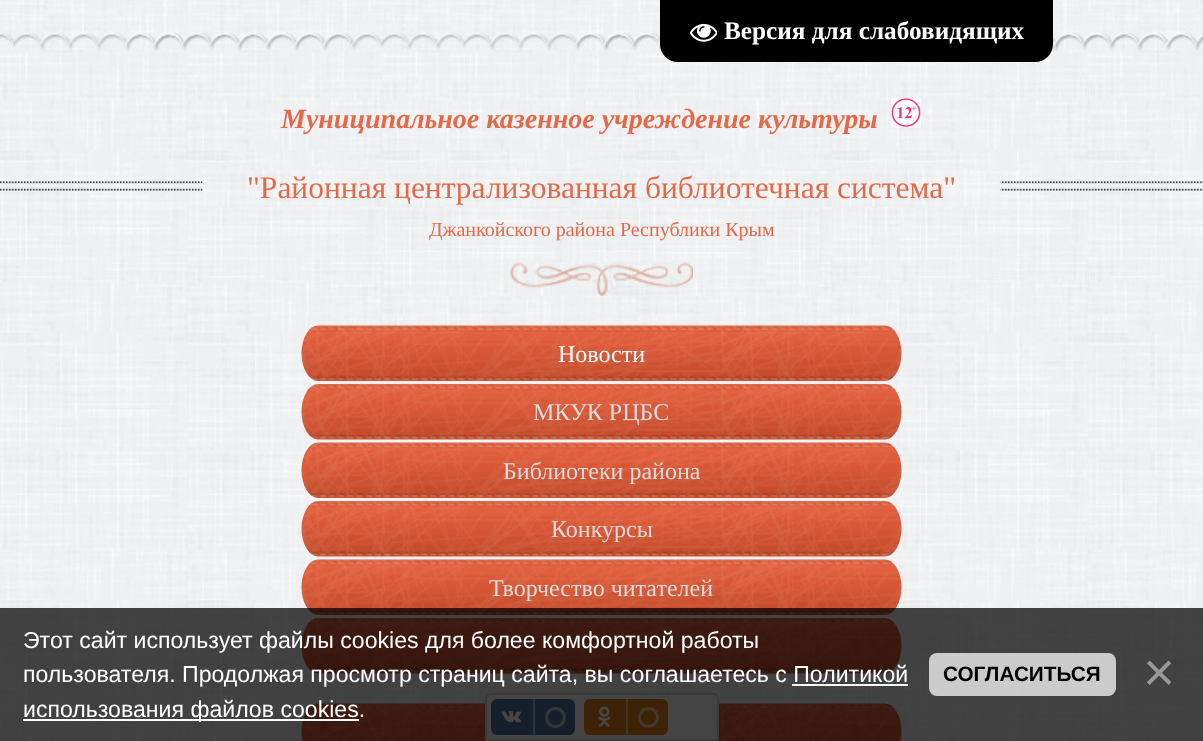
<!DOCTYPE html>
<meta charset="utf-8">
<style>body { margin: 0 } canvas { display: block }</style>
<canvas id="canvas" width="1203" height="741"></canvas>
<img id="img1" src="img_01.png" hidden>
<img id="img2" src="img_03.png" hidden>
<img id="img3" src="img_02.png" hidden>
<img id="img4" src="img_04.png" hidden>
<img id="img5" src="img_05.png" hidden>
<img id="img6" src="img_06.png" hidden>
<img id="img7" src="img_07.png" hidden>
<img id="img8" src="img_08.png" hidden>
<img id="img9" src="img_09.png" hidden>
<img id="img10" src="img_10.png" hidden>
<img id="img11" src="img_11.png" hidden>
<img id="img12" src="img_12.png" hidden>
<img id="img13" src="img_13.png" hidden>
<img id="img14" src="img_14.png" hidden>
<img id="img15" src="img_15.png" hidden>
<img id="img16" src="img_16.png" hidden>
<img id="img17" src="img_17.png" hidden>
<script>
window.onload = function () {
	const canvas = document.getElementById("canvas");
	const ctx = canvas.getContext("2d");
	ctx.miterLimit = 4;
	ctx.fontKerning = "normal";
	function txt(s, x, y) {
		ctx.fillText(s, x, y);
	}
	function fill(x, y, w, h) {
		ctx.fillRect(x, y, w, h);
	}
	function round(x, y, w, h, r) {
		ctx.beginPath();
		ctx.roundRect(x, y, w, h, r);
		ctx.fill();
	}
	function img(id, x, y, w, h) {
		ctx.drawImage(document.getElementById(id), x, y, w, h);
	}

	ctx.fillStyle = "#FFFFFF";
	fill(0, 0, 1203, 741);
	img("img1", 0, 52, 1203, 689);
	img("img2", 0, 0, 1203, 53);
	ctx.fillStyle = "#000000";
	ctx.beginPath();
	ctx.roundRect(660, 0, 393, 62, [0, 0, 18, 18]);
	ctx.fill();
	img("img3", 690, 23, 27, 19);
	img("img4", 891, 97, 30, 31);
	img("img5", 0, 181, 1203, 10);
	img("img6", 202, 169, 799, 38);
	img("img7", 384, 207, 435, 89);
	img("img8", 510, 262, 183, 34);
	img("img9", 301, 325, 601, 56);
	img("img10", 301, 384, 601, 56);
	img("img11", 301, 442, 601, 56);
	img("img12", 301, 501, 601, 56);
	img("img13", 301, 559, 601, 56);
	img("img14", 301, 618, 601, 56);
	img("img15", 301, 703, 601, 38);
	ctx.fillStyle = "#FAFAFA";
	ctx.beginPath();
	ctx.roundRect(486, 694, 232, 46, [5, 5, 0, 0]);
	ctx.fill();
	ctx.strokeStyle = "#D4D4D4";
	ctx.lineWidth = 2;
	ctx.stroke();
	ctx.fillStyle = "#4D75A3";
	round(491, 699, 84, 36, 6);
	img("img16", 501, 711, 21, 12);
	ctx.fillStyle = "#A6BAD1";
	fill(533, 699, 2, 36);
	ctx.beginPath();
	ctx.arc(555.5, 717.5, 9, 0, Math.PI * 2);
	ctx.strokeStyle = "#B8C8DA";
	ctx.lineWidth = 3;
	ctx.stroke();
	ctx.fillStyle = "#E67E17";
	round(584, 699, 84, 36, 6);
	img("img17", 598, 706, 13, 21);
	ctx.fillStyle = "#F3BF8B";
	fill(626, 699, 2, 36);
	ctx.beginPath();
	ctx.arc(648.5, 717.5, 9, 0, Math.PI * 2);
	ctx.strokeStyle = "#F5CBA2";
	ctx.stroke();
	ctx.fillStyle = "rgba(0, 0, 0, 0.73)";
	fill(0, 608, 1203, 133);
	ctx.fillStyle = "#FFFFFF";
	fill(792, 684, 116, 2);
	fill(23, 719, 336, 2);
	ctx.fillStyle = "rgba(255, 255, 255, 0.73)";
	round(929, 653, 187, 43, 8);
	ctx.font = "bold 25.25px Liberation Serif";
	ctx.fillStyle = "#FFFFFF";
	txt("Версия для слабовидящих", 724, 39);
	ctx.font = "italic bold 28px Liberation Serif";
	ctx.fillStyle = "#E36A49";
	txt("Муниципальное казенное учреждение культуры", 281, 128);
	ctx.font = "31.5px Liberation Serif";
	txt("\"Районная централизованная библиотечная система\"", 247, 198);
	ctx.font = "20px Liberation Serif";
	txt("Джанкойского района Республики Крым", 429, 236);
	ctx.font = "24px Liberation Serif";
	ctx.fillStyle = "#FFFFFF";
	txt("Новости", 558, 362);
	ctx.fillStyle = "#DDDDDD";
	txt("МКУК РЦБС", 533, 420);
	txt("Библиотеки района", 503, 479);
	txt("Конкурсы", 551, 537);
	txt("Творчество читателей", 489, 596);
	ctx.font = "23.1px Liberation Sans";
	ctx.fillStyle = "#FFFFFF";
	txt("Этот сайт использует файлы cookies для более комфортной работы", 23, 648);
	txt("пользователя. Продолжая просмотр страниц сайта, вы соглашаетесь с Политикой", 23, 682);
	txt("использования файлов cookies.", 23, 717);
	ctx.font = "bold 20.75px Liberation Sans";
	ctx.fillStyle = "#000000";
	txt("СОГЛАСИТЬСЯ", 943, 681);
	ctx.font = "55px Liberation Sans";
	ctx.fillStyle = "#999999";
	txt("×", 1143, 691);
};
</script>
